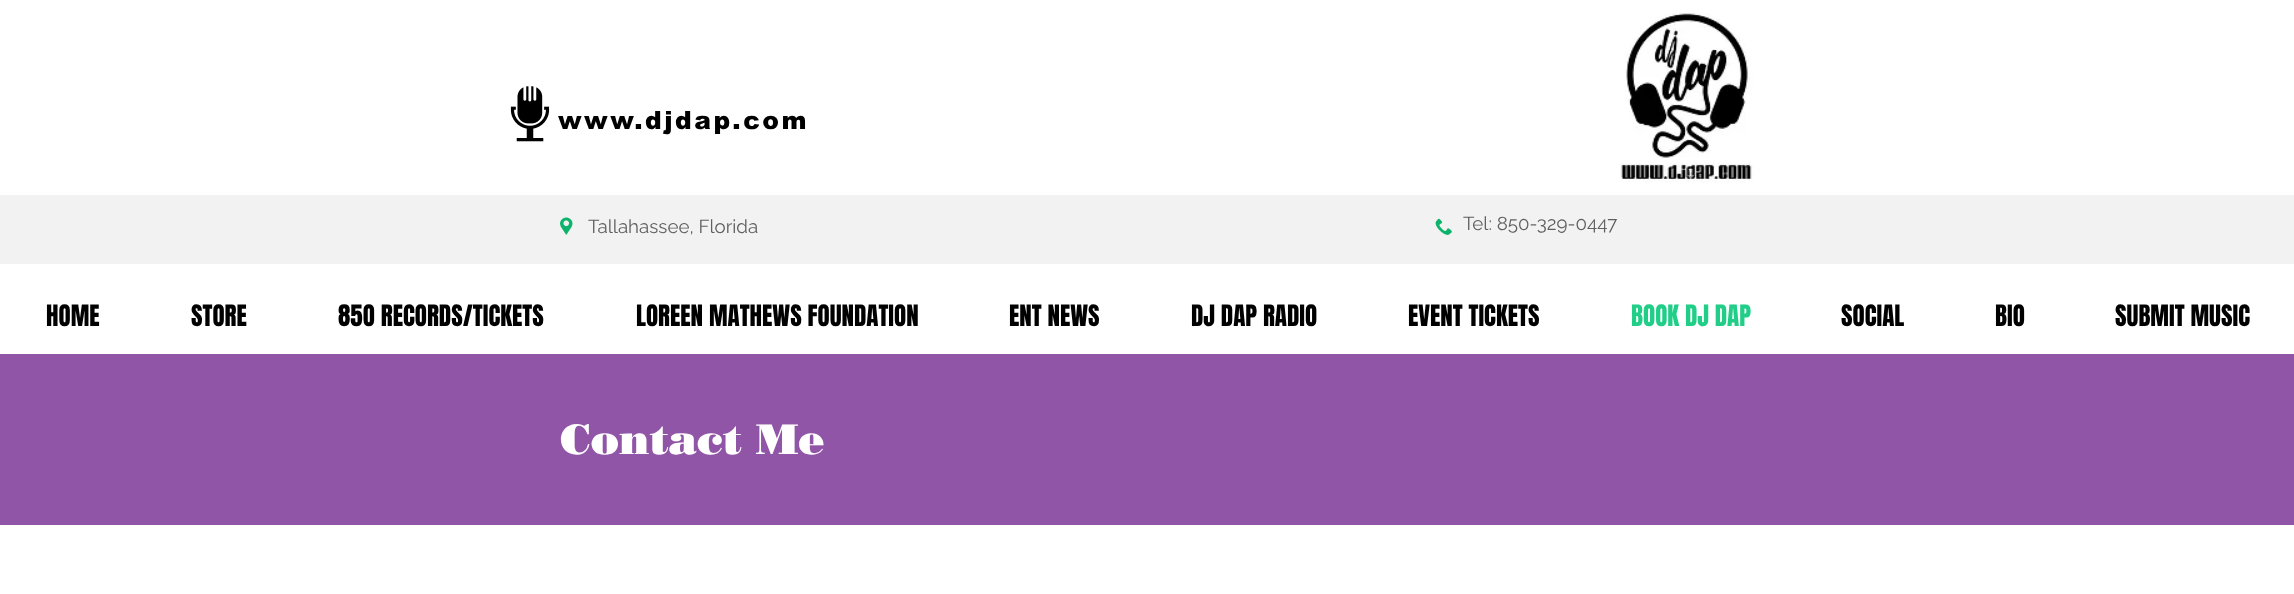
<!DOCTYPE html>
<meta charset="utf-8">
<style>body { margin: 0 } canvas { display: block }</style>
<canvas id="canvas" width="2294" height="594"></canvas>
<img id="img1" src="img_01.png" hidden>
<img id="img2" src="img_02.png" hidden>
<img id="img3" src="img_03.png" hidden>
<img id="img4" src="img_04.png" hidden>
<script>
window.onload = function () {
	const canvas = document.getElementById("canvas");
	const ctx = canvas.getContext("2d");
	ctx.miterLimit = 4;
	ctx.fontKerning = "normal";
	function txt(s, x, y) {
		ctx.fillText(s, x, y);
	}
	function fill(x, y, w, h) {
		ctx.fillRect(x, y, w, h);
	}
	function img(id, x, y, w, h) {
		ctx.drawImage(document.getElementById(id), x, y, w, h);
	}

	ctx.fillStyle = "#FFFFFF";
	fill(0, 0, 2294, 594);
	img("img1", 510, 86, 40, 56);
	img("img2", 1620, 13, 134, 170);
	ctx.fillStyle = "#F2F2F2";
	fill(0, 195, 2294, 69);
	img("img3", 560, 217, 13, 18);
	img("img4", 1435, 218, 17, 17);
	ctx.fillStyle = "#9155A7";
	fill(0, 354, 2294, 171);
	ctx.letterSpacing = "2.5px";
	ctx.font = "900 25px arial";
	ctx.fillStyle = "#000000";
	txt("www.djdap.com", 558, 129);
	ctx.letterSpacing = "0px";
	ctx.font = "18.75px Raleway";
	ctx.fillStyle = "#605E5E";
	txt("Tallahassee, Florida", 588, 233);
	txt("Tel: 850-329-0447", 1463, 230);
	ctx.font = "25px Anton";
	ctx.fillStyle = "#000000";
	txt("HOME", 46, 326);
	txt("STORE", 191, 326);
	txt("85O RECORDS/TICKETS", 338, 326);
	txt("LOREEN MATHEWS FOUNDATION", 636, 326);
	txt("ENT NEWS", 1009, 326);
	txt("DJ DAP RADIO", 1191, 326);
	txt("EVENT TICKETS", 1408, 326);
	ctx.fillStyle = "#20CE88";
	txt("BOOK DJ DAP", 1631, 326);
	ctx.fillStyle = "#000000";
	txt("SOCIAL", 1841, 326);
	txt("BIO", 1995, 326);
	txt("SUBMIT MUSIC", 2115, 326);
	ctx.font = "900 42.5px 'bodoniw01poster'";
	ctx.fillStyle = "#FFFFFF";
	txt("Contact Me", 560, 454);
};
</script>
